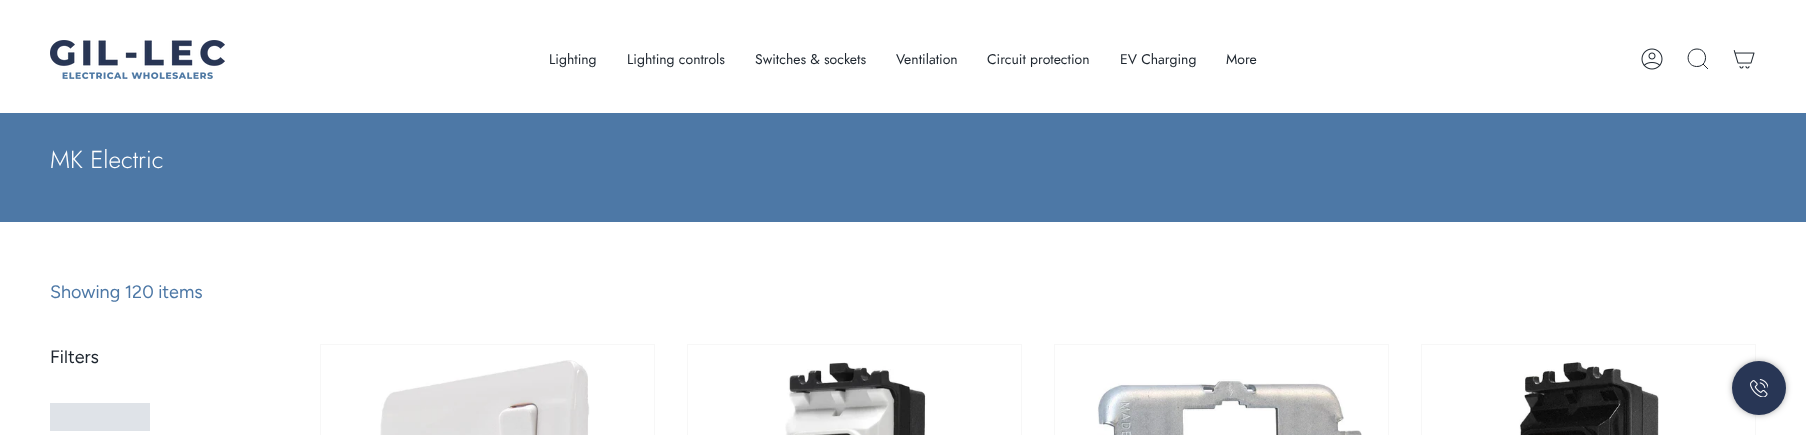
<!DOCTYPE html>
<meta charset="utf-8">
<style>body { margin: 0 } canvas { display: block }</style>
<canvas id="canvas" width="1806" height="435"></canvas>
<img id="img1" src="img_01.png" hidden>
<img id="img2" src="img_02.png" hidden>
<img id="img3" src="img_03.png" hidden>
<img id="img4" src="img_04.png" hidden>
<img id="img5" src="img_05.png" hidden>
<img id="img6" src="img_06.png" hidden>
<img id="img7" src="img_07.png" hidden>
<img id="img8" src="img_08.png" hidden>
<script>
window.onload = function () {
	const canvas = document.getElementById("canvas");
	const ctx = canvas.getContext("2d");
	ctx.miterLimit = 4;
	ctx.fontKerning = "normal";
	function txt(s, x, y) {
		ctx.fillText(s, x, y);
	}
	function fill(x, y, w, h) {
		ctx.fillRect(x, y, w, h);
	}
	function img(id, x, y, w, h) {
		ctx.drawImage(document.getElementById(id), x, y, w, h);
	}

	ctx.fillStyle = "#FFFFFF";
	fill(0, 0, 1806, 435);
	img("img1", 50, 40, 175, 39);
	img("img2", 1641, 48, 22, 22);
	ctx.beginPath();
	ctx.moveTo(1697, 49);
	ctx.bezierCurveTo(1708.5, 49, 1708.5, 67, 1696.5, 66.5);
	ctx.bezierCurveTo(1685, 66, 1685.5, 49, 1697, 49);
	ctx.closePath();
	ctx.moveTo(1703, 64);
	ctx.lineTo(1708, 69);
	ctx.strokeStyle = "#1E262F";
	ctx.stroke();
	img("img3", 1733, 50, 22, 19);
	ctx.fillStyle = "#4D78A6";
	fill(0, 113, 1806, 109);
	ctx.fillStyle = "#DFE3E8";
	fill(50, 403, 100, 28);
	ctx.strokeStyle = "#F7F7F7";
	ctx.strokeRect(320.5, 344.5, 334, 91);
	img("img4", 380, 360, 210, 75);
	ctx.strokeRect(687.5, 344.5, 334, 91);
	img("img5", 785, 362, 142, 73);
	ctx.strokeRect(1054.5, 344.5, 334, 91);
	img("img6", 1097, 379, 265, 56);
	ctx.strokeRect(1421.5, 344.5, 334, 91);
	img("img7", 1519, 361, 140, 74);
	ctx.fillStyle = "#000000";
	ctx.filter = "blur(5px)";
	ctx.beginPath();
	ctx.roundRect(1736, 365, 46, 46, 23);
	ctx.fill();
	ctx.filter = "none";
	ctx.fillStyle = "#283655";
	ctx.beginPath();
	ctx.arc(1759, 388, 27, 0, Math.PI * 2);
	ctx.fill();
	img("img8", 1750, 379, 18, 18);
	ctx.font = "14px Jost";
	ctx.fillStyle = "#1E262F";
	txt("Lighting", 549, 64);
	txt("Lighting controls", 627, 64);
	txt("Switches & sockets", 755, 64);
	txt("Ventilation", 896, 64);
	txt("Circuit protection", 987, 64);
	txt("EV Charging", 1120, 64);
	txt("More", 1226, 64);
	ctx.font = "300 24.5px Jost";
	ctx.fillStyle = "#FFFFFF";
	txt("MK Electric", 50, 168);
	ctx.font = "18px Figtree";
	ctx.fillStyle = "#4D78A6";
	txt("Showing 120 items", 50, 298);
	ctx.fillStyle = "#1E262F";
	txt("Filters", 50, 363);
};
</script>
